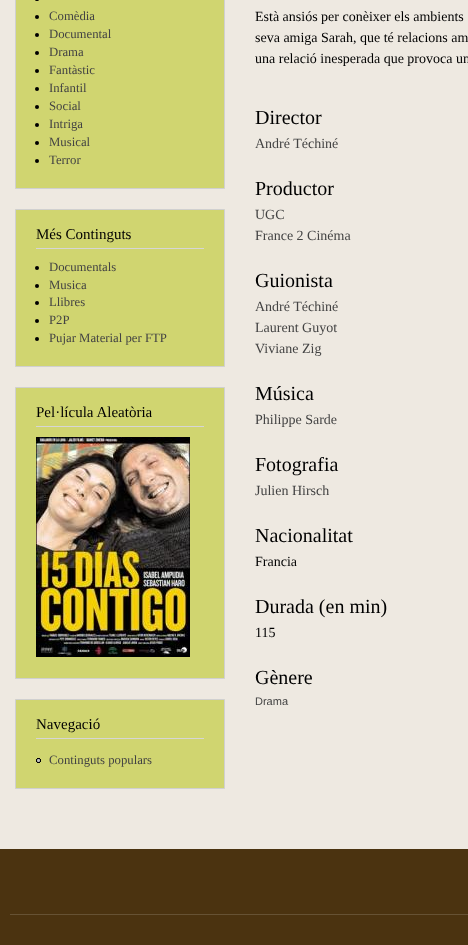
<!DOCTYPE html>
<meta charset="utf-8">
<style>body { margin: 0 } canvas { display: block }</style>
<canvas id="canvas" width="468" height="945"></canvas>
<img id="img1" src="img_01.png" hidden>
<img id="img2" src="img_02.png" hidden>
<script>
window.onload = function () {
	const canvas = document.getElementById("canvas");
	const ctx = canvas.getContext("2d");
	ctx.miterLimit = 4;
	ctx.fontKerning = "normal";
	function txt(s, x, y) {
		ctx.fillText(s, x, y);
	}
	function fill(x, y, w, h) {
		ctx.fillRect(x, y, w, h);
	}
	function round(x, y, w, h, r) {
		ctx.beginPath();
		ctx.roundRect(x, y, w, h, r);
		ctx.fill();
	}
	function img(id, x, y, w, h) {
		ctx.drawImage(document.getElementById(id), x, y, w, h);
	}

	ctx.fillStyle = "#EEE9E1";
	fill(0, 0, 468, 945);
	ctx.fillStyle = "#D0D570";
	ctx.beginPath();
	ctx.rect(15.5, -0.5, 209, 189);
	ctx.fill();
	ctx.strokeStyle = "#D0D0D0";
	ctx.stroke();
	ctx.fillStyle = "#000000";
	round(35, -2, 4, 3, 2);
	ctx.beginPath();
	ctx.arc(37, 17, 2, 0, Math.PI * 2);
	ctx.fill();
	ctx.beginPath();
	ctx.arc(37, 35, 2, 0, Math.PI * 2);
	ctx.fill();
	ctx.beginPath();
	ctx.arc(37, 53, 2, 0, Math.PI * 2);
	ctx.fill();
	ctx.beginPath();
	ctx.arc(37, 71, 2, 0, Math.PI * 2);
	ctx.fill();
	ctx.beginPath();
	ctx.arc(37, 89, 2, 0, Math.PI * 2);
	ctx.fill();
	ctx.beginPath();
	ctx.arc(37, 107, 2, 0, Math.PI * 2);
	ctx.fill();
	ctx.beginPath();
	ctx.arc(37, 125, 2, 0, Math.PI * 2);
	ctx.fill();
	ctx.beginPath();
	ctx.arc(37, 143, 2, 0, Math.PI * 2);
	ctx.fill();
	ctx.beginPath();
	ctx.arc(37, 161, 2, 0, Math.PI * 2);
	ctx.fill();
	ctx.fillStyle = "#D0D570";
	ctx.beginPath();
	ctx.rect(15.5, 209.5, 209, 157);
	ctx.fill();
	ctx.stroke();
	ctx.fillStyle = "#D6D6D6";
	fill(36, 248, 168, 1);
	ctx.fillStyle = "#000000";
	ctx.beginPath();
	ctx.arc(37, 268, 2, 0, Math.PI * 2);
	ctx.fill();
	ctx.beginPath();
	ctx.arc(37, 286, 2, 0, Math.PI * 2);
	ctx.fill();
	ctx.beginPath();
	ctx.arc(37, 303, 2, 0, Math.PI * 2);
	ctx.fill();
	ctx.beginPath();
	ctx.arc(37, 321, 2, 0, Math.PI * 2);
	ctx.fill();
	ctx.beginPath();
	ctx.arc(37, 339, 2, 0, Math.PI * 2);
	ctx.fill();
	ctx.fillStyle = "#D0D570";
	ctx.beginPath();
	ctx.rect(15.5, 387.5, 209, 291);
	ctx.fill();
	ctx.stroke();
	ctx.fillStyle = "#D6D6D6";
	fill(36, 426, 168, 1);
	img("img1", 36, 437, 154, 220);
	ctx.fillStyle = "#D0D570";
	ctx.beginPath();
	ctx.rect(15.5, 699.5, 209, 89);
	ctx.fill();
	ctx.stroke();
	ctx.fillStyle = "#D6D6D6";
	fill(36, 738, 168, 1);
	img("img2", 36, 758, 5, 5);
	ctx.fillStyle = "#4B3310";
	fill(0, 849, 468, 96);
	ctx.fillStyle = "#665234";
	fill(10, 914, 458, 1);
	ctx.font = "12.75px Liberation Serif";
	ctx.fillStyle = "#434343";
	txt("Comèdia", 49, 20);
	txt("Documental", 49, 38);
	txt("Drama", 49, 56);
	txt("Fantàstic", 49, 74);
	txt("Infantil", 49, 92);
	txt("Social", 49, 110);
	txt("Intriga", 49, 128);
	txt("Musical", 49, 146);
	txt("Terror", 49, 164);
	ctx.font = "15px Liberation Serif";
	ctx.fillStyle = "#000000";
	txt("Més Continguts", 36, 239);
	ctx.font = "12.75px Liberation Serif";
	ctx.fillStyle = "#434343";
	txt("Documentals", 49, 271);
	txt("Musica", 49, 289);
	txt("Llibres", 49, 306);
	txt("P2P", 49, 324);
	txt("Pujar Material per FTP", 49, 342);
	ctx.font = "15px Liberation Serif";
	ctx.fillStyle = "#000000";
	txt("Pel·lícula Aleatòria", 36, 417);
	txt("Navegació", 36, 729);
	ctx.font = "12.75px Liberation Serif";
	ctx.fillStyle = "#434343";
	txt("Continguts populars", 49, 764);
	ctx.font = "14px Liberation Serif";
	ctx.fillStyle = "#000000";
	txt("Està ansiós per conèixer els ambients", 255, 21);
	txt("seva amiga Sarah, que té relacions am", 255, 42);
	txt("una relació inesperada que provoca un", 255, 63);
	ctx.font = "20px Liberation Serif";
	txt("Director", 255, 124);
	ctx.font = "14px Liberation Serif";
	ctx.fillStyle = "#434343";
	txt("André Téchiné", 255, 148);
	ctx.font = "20px Liberation Serif";
	ctx.fillStyle = "#000000";
	txt("Productor", 255, 195);
	ctx.font = "14px Liberation Serif";
	ctx.fillStyle = "#434343";
	txt("UGC", 255, 219);
	txt("France 2 Cinéma", 255, 240);
	ctx.font = "20px Liberation Serif";
	ctx.fillStyle = "#000000";
	txt("Guionista", 255, 287);
	ctx.font = "14px Liberation Serif";
	ctx.fillStyle = "#434343";
	txt("André Téchiné", 255, 311);
	txt("Laurent Guyot", 255, 332);
	txt("Viviane Zig", 255, 353);
	ctx.font = "20px Liberation Serif";
	ctx.fillStyle = "#000000";
	txt("Música", 255, 400);
	ctx.font = "14px Liberation Serif";
	ctx.fillStyle = "#434343";
	txt("Philippe Sarde", 255, 424);
	ctx.font = "20px Liberation Serif";
	ctx.fillStyle = "#000000";
	txt("Fotografia", 255, 471);
	ctx.font = "14px Liberation Serif";
	ctx.fillStyle = "#434343";
	txt("Julien Hirsch", 255, 495);
	ctx.font = "20px Liberation Serif";
	ctx.fillStyle = "#000000";
	txt("Nacionalitat", 255, 542);
	ctx.font = "14px Liberation Serif";
	txt("Francia", 255, 566);
	ctx.font = "20px Liberation Serif";
	txt("Durada (en min)", 255, 613);
	ctx.font = "14px Liberation Serif";
	txt("115", 255, 637);
	ctx.font = "20px Liberation Serif";
	txt("Gènere", 255, 684);
	ctx.font = "11px Liberation Sans";
	ctx.fillStyle = "#434343";
	txt("Drama", 255, 705);
};
</script>
